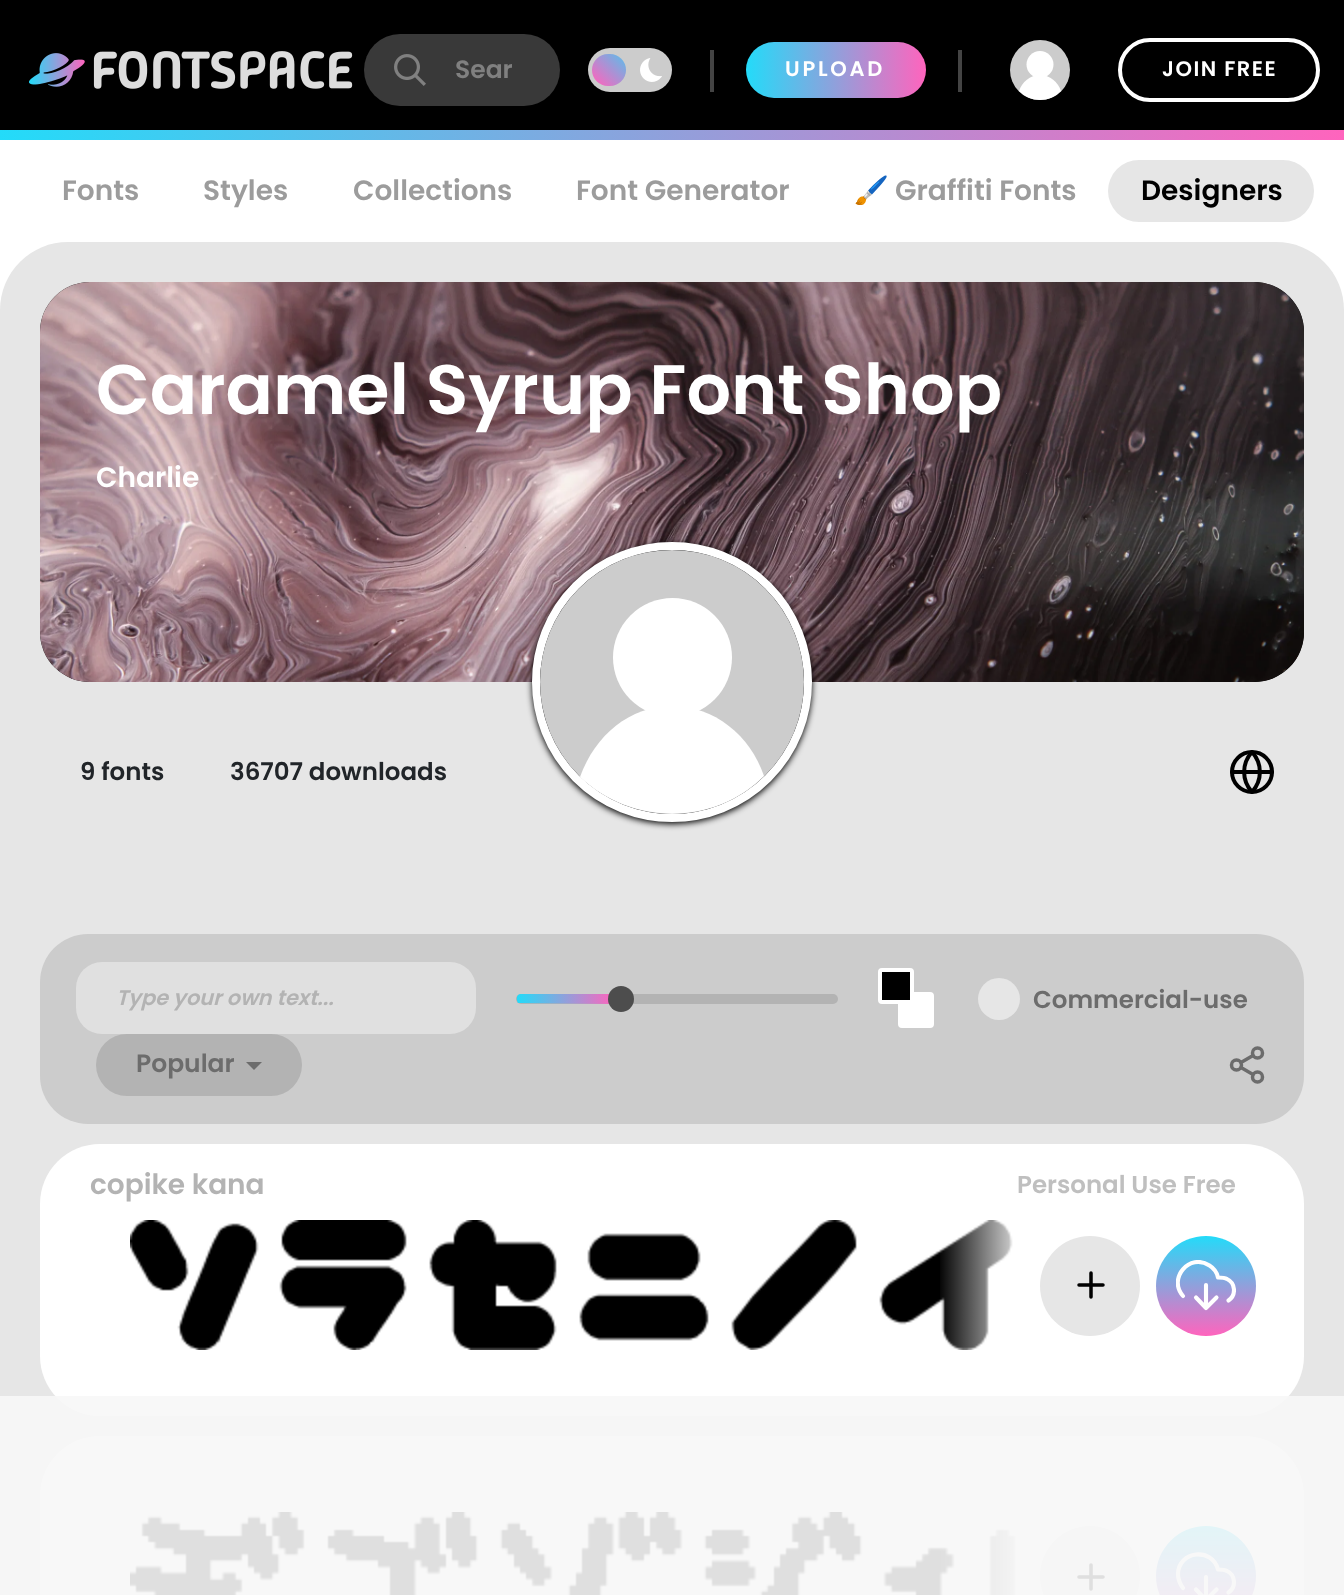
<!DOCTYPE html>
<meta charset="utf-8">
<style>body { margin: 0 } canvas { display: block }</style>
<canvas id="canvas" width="1344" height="1595"></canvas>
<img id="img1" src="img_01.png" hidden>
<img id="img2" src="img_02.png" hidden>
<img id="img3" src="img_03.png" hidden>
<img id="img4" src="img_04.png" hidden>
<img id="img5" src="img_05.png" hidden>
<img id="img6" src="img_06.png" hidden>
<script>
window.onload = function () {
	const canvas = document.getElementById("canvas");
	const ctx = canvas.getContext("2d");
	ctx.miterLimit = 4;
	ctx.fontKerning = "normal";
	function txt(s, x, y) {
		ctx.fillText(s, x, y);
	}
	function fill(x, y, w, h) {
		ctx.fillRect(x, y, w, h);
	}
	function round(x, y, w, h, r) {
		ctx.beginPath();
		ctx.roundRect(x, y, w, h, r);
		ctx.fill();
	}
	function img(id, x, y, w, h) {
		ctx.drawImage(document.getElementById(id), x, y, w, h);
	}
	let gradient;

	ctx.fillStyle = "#FFFFFF";
	fill(0, 0, 1344, 1595);
	ctx.fillStyle = "#000000";
	fill(0, 0, 1344, 130);
	gradient = ctx.createLinearGradient(0, 135, 1344, 135);
	gradient.addColorStop(0, "#23DBF9");
	gradient.addColorStop(1, "#FF64BD");
	ctx.fillStyle = gradient;
	fill(0, 130, 1344, 10);
	img("img1", 29, 51, 324, 38);
	ctx.fillStyle = "#393939";
	round(364, 34, 196, 72, 36);
	img("img2", 394, 54, 32, 32);
	ctx.fillStyle = "#CCCCCC";
	round(588, 48, 84, 44, 22);
	gradient = ctx.createLinearGradient(635, 44, 593, 87);
	gradient.addColorStop(0, "#23DBF9");
	gradient.addColorStop(0.96, "#FF64BD");
	ctx.fillStyle = gradient;
	round(592, 54, 34, 32, 16);
	img("img3", 640, 58, 22, 24);
	ctx.fillStyle = "#444444";
	fill(710, 50, 4, 42);
	gradient = ctx.createLinearGradient(746, 70, 926, 70);
	gradient.addColorStop(0, "#23DBF9");
	gradient.addColorStop(1, "#FF64BD");
	ctx.fillStyle = gradient;
	round(746, 42, 180, 56, 28);
	ctx.fillStyle = "#444444";
	fill(958, 50, 4, 42);
	ctx.fillStyle = "#CCCCCC";
	ctx.beginPath();
	ctx.arc(1040, 70, 30, 0, Math.PI * 2);
	ctx.fill();
	ctx.fillStyle = "#FFFFFF";
	ctx.beginPath();
	ctx.arc(1040, 64.5, 13.5, 0, Math.PI * 2);
	ctx.fill();
	ctx.beginPath();
	ctx.moveTo(1040, 75);
	ctx.bezierCurveTo(1050, 75, 1058, 82, 1061, 91);
	ctx.bezierCurveTo(1050, 103, 1030, 103, 1019, 91);
	ctx.bezierCurveTo(1022, 82, 1030, 75, 1040, 75);
	ctx.closePath();
	ctx.fill();
	ctx.beginPath();
	ctx.roundRect(1120, 40, 198, 60, 30);
	ctx.strokeStyle = "#FFFFFF";
	ctx.lineWidth = 4;
	ctx.stroke();
	ctx.fillStyle = "#E6E6E6";
	round(1108, 160, 206, 62, 31);
	round(0, 242, 1344, 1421, 68);
	ctx.fillStyle = "#000000";
	round(40, 282, 1264, 400, 50);
	img("img4", 40, 282, 1264, 400);
	ctx.beginPath();
	ctx.arc(1252, 772, 20, 0, Math.PI * 2);
	ctx.strokeStyle = "#000000";
	ctx.stroke();
	ctx.beginPath();
	ctx.moveTo(1232, 772);
	ctx.lineTo(1272, 772);
	ctx.moveTo(1252, 752);
	ctx.bezierCurveTo(1262.5, 763.5, 1262.5, 780.5, 1252, 792);
	ctx.bezierCurveTo(1241.5, 780.5, 1241.5, 763.5, 1252, 752);
	ctx.closePath();
	ctx.lineCap = "round";
	ctx.lineJoin = "round";
	ctx.stroke();
	ctx.filter = "blur(3px)";
	ctx.beginPath();
	ctx.roundRect(532, 544, 280, 280, 140);
	ctx.fill();
	ctx.filter = "none";
	ctx.beginPath();
	ctx.arc(672, 682, 136, 0, Math.PI * 2);
	ctx.strokeStyle = "#FFFFFF";
	ctx.lineWidth = 8;
	ctx.stroke();
	ctx.fillStyle = "#CCCCCC";
	ctx.beginPath();
	ctx.arc(672, 682, 132, 0, Math.PI * 2);
	ctx.fill();
	ctx.fillStyle = "#FFFFFF";
	ctx.beginPath();
	ctx.arc(672.5, 657.5, 59.5, 0, Math.PI * 2);
	ctx.fill();
	ctx.beginPath();
	ctx.moveTo(672, 706);
	ctx.bezierCurveTo(714, 706, 750, 735, 764, 776);
	ctx.bezierCurveTo(714, 826, 632, 826, 580, 777);
	ctx.bezierCurveTo(595, 735, 630, 706, 672, 706);
	ctx.closePath();
	ctx.fill();
	ctx.fillStyle = "#CCCCCC";
	round(40, 934, 1264, 190, 48);
	ctx.fillStyle = "#E0E0E0";
	round(76, 962, 400, 72, 26);
	ctx.fillStyle = "#B3B3B3";
	round(516, 994, 322, 10, 5);
	gradient = ctx.createLinearGradient(517, 999, 614, 999);
	gradient.addColorStop(0, "#23DBF9");
	gradient.addColorStop(1, "#FF64BD");
	ctx.fillStyle = gradient;
	ctx.beginPath();
	ctx.moveTo(521, 994);
	ctx.lineTo(613, 994);
	ctx.bezierCurveTo(616, 996, 615, 1002, 612, 1004);
	ctx.lineTo(518, 1003);
	ctx.bezierCurveTo(516, 1000, 516, 994, 521, 994);
	ctx.closePath();
	ctx.fill();
	ctx.fillStyle = "#4D4D4D";
	ctx.beginPath();
	ctx.arc(621, 999, 13, 0, Math.PI * 2);
	ctx.fill();
	ctx.fillStyle = "#FFFFFF";
	ctx.beginPath();
	ctx.roundRect(900, 994, 32, 32, 2);
	ctx.fill();
	ctx.lineWidth = 4;
	ctx.lineJoin = "miter";
	ctx.stroke();
	ctx.fillStyle = "#000000";
	ctx.beginPath();
	ctx.roundRect(880, 970, 32, 32, 2);
	ctx.fill();
	ctx.stroke();
	ctx.fillStyle = "#E6E6E6";
	ctx.beginPath();
	ctx.arc(999, 999, 21, 0, Math.PI * 2);
	ctx.fill();
	ctx.fillStyle = "#B3B3B3";
	round(96, 1034, 206, 62, 31);
	ctx.fillStyle = "#6C6C6C";
	ctx.beginPath();
	ctx.moveTo(246, 1062);
	ctx.lineTo(262, 1062);
	ctx.lineTo(254, 1070);
	ctx.closePath();
	ctx.fill();
	ctx.beginPath();
	ctx.arc(1236.5, 1065, 5, 0, Math.PI * 2);
	ctx.strokeStyle = "#6C6C6C";
	ctx.lineWidth = 3.5;
	ctx.stroke();
	ctx.beginPath();
	ctx.arc(1257.5, 1053, 5, 0, Math.PI * 2);
	ctx.stroke();
	ctx.beginPath();
	ctx.arc(1257.5, 1077, 5, 0, Math.PI * 2);
	ctx.stroke();
	ctx.beginPath();
	ctx.moveTo(1241, 1067.5);
	ctx.lineTo(1253, 1074.5);
	ctx.moveTo(1253, 1055.5);
	ctx.lineTo(1241, 1062.5);
	ctx.lineJoin = "round";
	ctx.stroke();
	ctx.fillStyle = "#FFFFFF";
	round(40, 1144, 1264, 272, 60);
	img("img5", 130, 1220, 883, 130);
	gradient = ctx.createLinearGradient(1032, 1285, 90, 1285);
	gradient.addColorStop(0, "#FFFFFF");
	gradient.addColorStop(0.1, "rgba(255, 255, 255, 0)");
	ctx.fillStyle = gradient;
	fill(940, 1220, 73, 130);
	ctx.fillStyle = "#E6E6E6";
	ctx.beginPath();
	ctx.arc(1090, 1286, 50, 0, Math.PI * 2);
	ctx.fill();
	ctx.beginPath();
	ctx.moveTo(1091, 1273);
	ctx.lineTo(1091, 1297);
	ctx.moveTo(1079, 1285);
	ctx.lineTo(1103, 1285);
	ctx.strokeStyle = "#000000";
	ctx.stroke();
	gradient = ctx.createLinearGradient(1206, 1236, 1206, 1336);
	gradient.addColorStop(0, "#23DBF9");
	gradient.addColorStop(1, "#FF64BD");
	ctx.fillStyle = gradient;
	ctx.beginPath();
	ctx.arc(1206, 1286, 50, 0, Math.PI * 2);
	ctx.fill();
	ctx.beginPath();
	ctx.moveTo(1196, 1297.5);
	ctx.lineTo(1206, 1308);
	ctx.lineTo(1216.5, 1297.5);
	ctx.moveTo(1206, 1285);
	ctx.lineTo(1206, 1308);
	ctx.strokeStyle = "#FFFFFF";
	ctx.lineWidth = 4.1;
	ctx.stroke();
	ctx.save();
	ctx.beginPath();
	ctx.rect(1176, 1260, 60, 50);
	ctx.clip();
	ctx.beginPath();
	ctx.moveTo(1228.5, 1300.5);
	ctx.bezierCurveTo(1236.5, 1295, 1235.5, 1283, 1227, 1279);
	ctx.bezierCurveTo(1224.5, 1277.5, 1221.5, 1277.5, 1218, 1277.5);
	ctx.bezierCurveTo(1217, 1272.5, 1213.5, 1268, 1209.5, 1265.5);
	ctx.bezierCurveTo(1189.5, 1252.5, 1167.5, 1278.5, 1183, 1296);
	ctx.stroke();
	ctx.restore();
	ctx.fillStyle = "#FFFFFF";
	round(40, 1436, 1264, 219, 60);
	img("img6", 130, 1512, 887, 83);
	gradient = ctx.createLinearGradient(1032, 1577, 90, 1577);
	gradient.addColorStop(0, "#FFFFFF");
	gradient.addColorStop(0.1, "rgba(255, 255, 255, 0)");
	ctx.fillStyle = gradient;
	fill(940, 1529, 77, 66);
	ctx.fillStyle = "#E6E6E6";
	ctx.beginPath();
	ctx.arc(1090, 1576, 50, 0, Math.PI * 2);
	ctx.fill();
	ctx.beginPath();
	ctx.moveTo(1091, 1565);
	ctx.lineTo(1091, 1589);
	ctx.moveTo(1079, 1577);
	ctx.lineTo(1103, 1577);
	ctx.strokeStyle = "#000000";
	ctx.lineWidth = 3.5;
	ctx.stroke();
	gradient = ctx.createLinearGradient(1206, 1526, 1206, 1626);
	gradient.addColorStop(0, "#23DBF9");
	gradient.addColorStop(1, "#FF64BD");
	ctx.fillStyle = gradient;
	ctx.beginPath();
	ctx.arc(1206, 1576, 50, 0, Math.PI * 2);
	ctx.fill();
	ctx.beginPath();
	ctx.moveTo(1196, 1589.5);
	ctx.lineTo(1206, 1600);
	ctx.lineTo(1216.5, 1589.5);
	ctx.moveTo(1206, 1577);
	ctx.lineTo(1206, 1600);
	ctx.moveTo(1228.5, 1592.5);
	ctx.bezierCurveTo(1236.5, 1587, 1235.5, 1575, 1227, 1571);
	ctx.bezierCurveTo(1224.5, 1569.5, 1221.5, 1569.5, 1218, 1569.5);
	ctx.bezierCurveTo(1212.5, 1547, 1178.5, 1550.5, 1178, 1574);
	ctx.bezierCurveTo(1178, 1579, 1180, 1584, 1183, 1588);
	ctx.strokeStyle = "#FFFFFF";
	ctx.lineWidth = 4.1;
	ctx.stroke();
	ctx.fillStyle = "rgba(247, 247, 247, 0.9)";
	fill(0, 1396, 1344, 199);
	ctx.save();
	ctx.beginPath();
	ctx.rect(454, 52, 58, 36);
	ctx.clip();
	ctx.font = "600 25px Poppins";
	ctx.fillStyle = "#808080";
	txt("Sear", 455, 78);
	ctx.restore();
	ctx.letterSpacing = "2.75px";
	ctx.font = "600 21px Poppins";
	ctx.fillStyle = "#FFFFFF";
	txt("UPLOAD", 785, 76);
	ctx.letterSpacing = "1.5px";
	txt("JOIN FREE", 1162, 76);
	ctx.letterSpacing = "0px";
	ctx.font = "600 28px Poppins";
	ctx.fillStyle = "#9C9C9C";
	txt("Fonts", 62, 200);
	txt("Styles", 203, 200);
	txt("Collections", 353, 200);
	txt("Font Generator", 576, 200);
	ctx.font = "bold 28px Noto Color Emoji";
	txt("🖌️", 854, 200);
	ctx.font = "600 28px Poppins";
	txt("Graffiti Fonts", 895, 200);
	ctx.fillStyle = "#000000";
	txt("Designers", 1141, 200);
	ctx.font = "600 70px Poppins";
	ctx.fillStyle = "#FFFFFF";
	txt("Caramel Syrup Font Shop", 96, 414);
	ctx.font = "600 28px Poppins";
	txt("Charlie", 96, 487);
	ctx.font = "600 24.5px Poppins";
	ctx.fillStyle = "#212529";
	txt("9 fonts", 80, 780);
	txt("36707 downloads", 230, 780);
	ctx.font = "italic 600 21px Poppins";
	ctx.fillStyle = "#B3B3B3";
	txt("Type your own text...", 116, 1005);
	ctx.font = "600 24.5px Poppins";
	ctx.fillStyle = "#6C6C6C";
	txt("Commercial-use", 1033, 1008);
	ctx.font = "600 25px Poppins";
	txt("Popular", 136, 1072);
	ctx.font = "600 28px Poppins";
	ctx.fillStyle = "#B3B3B3";
	txt("copike kana", 90, 1194);
	ctx.font = "600 24.5px Poppins";
	ctx.fillStyle = "#BFBFBF";
	txt("Personal Use Free", 1017, 1193);
};
</script>
